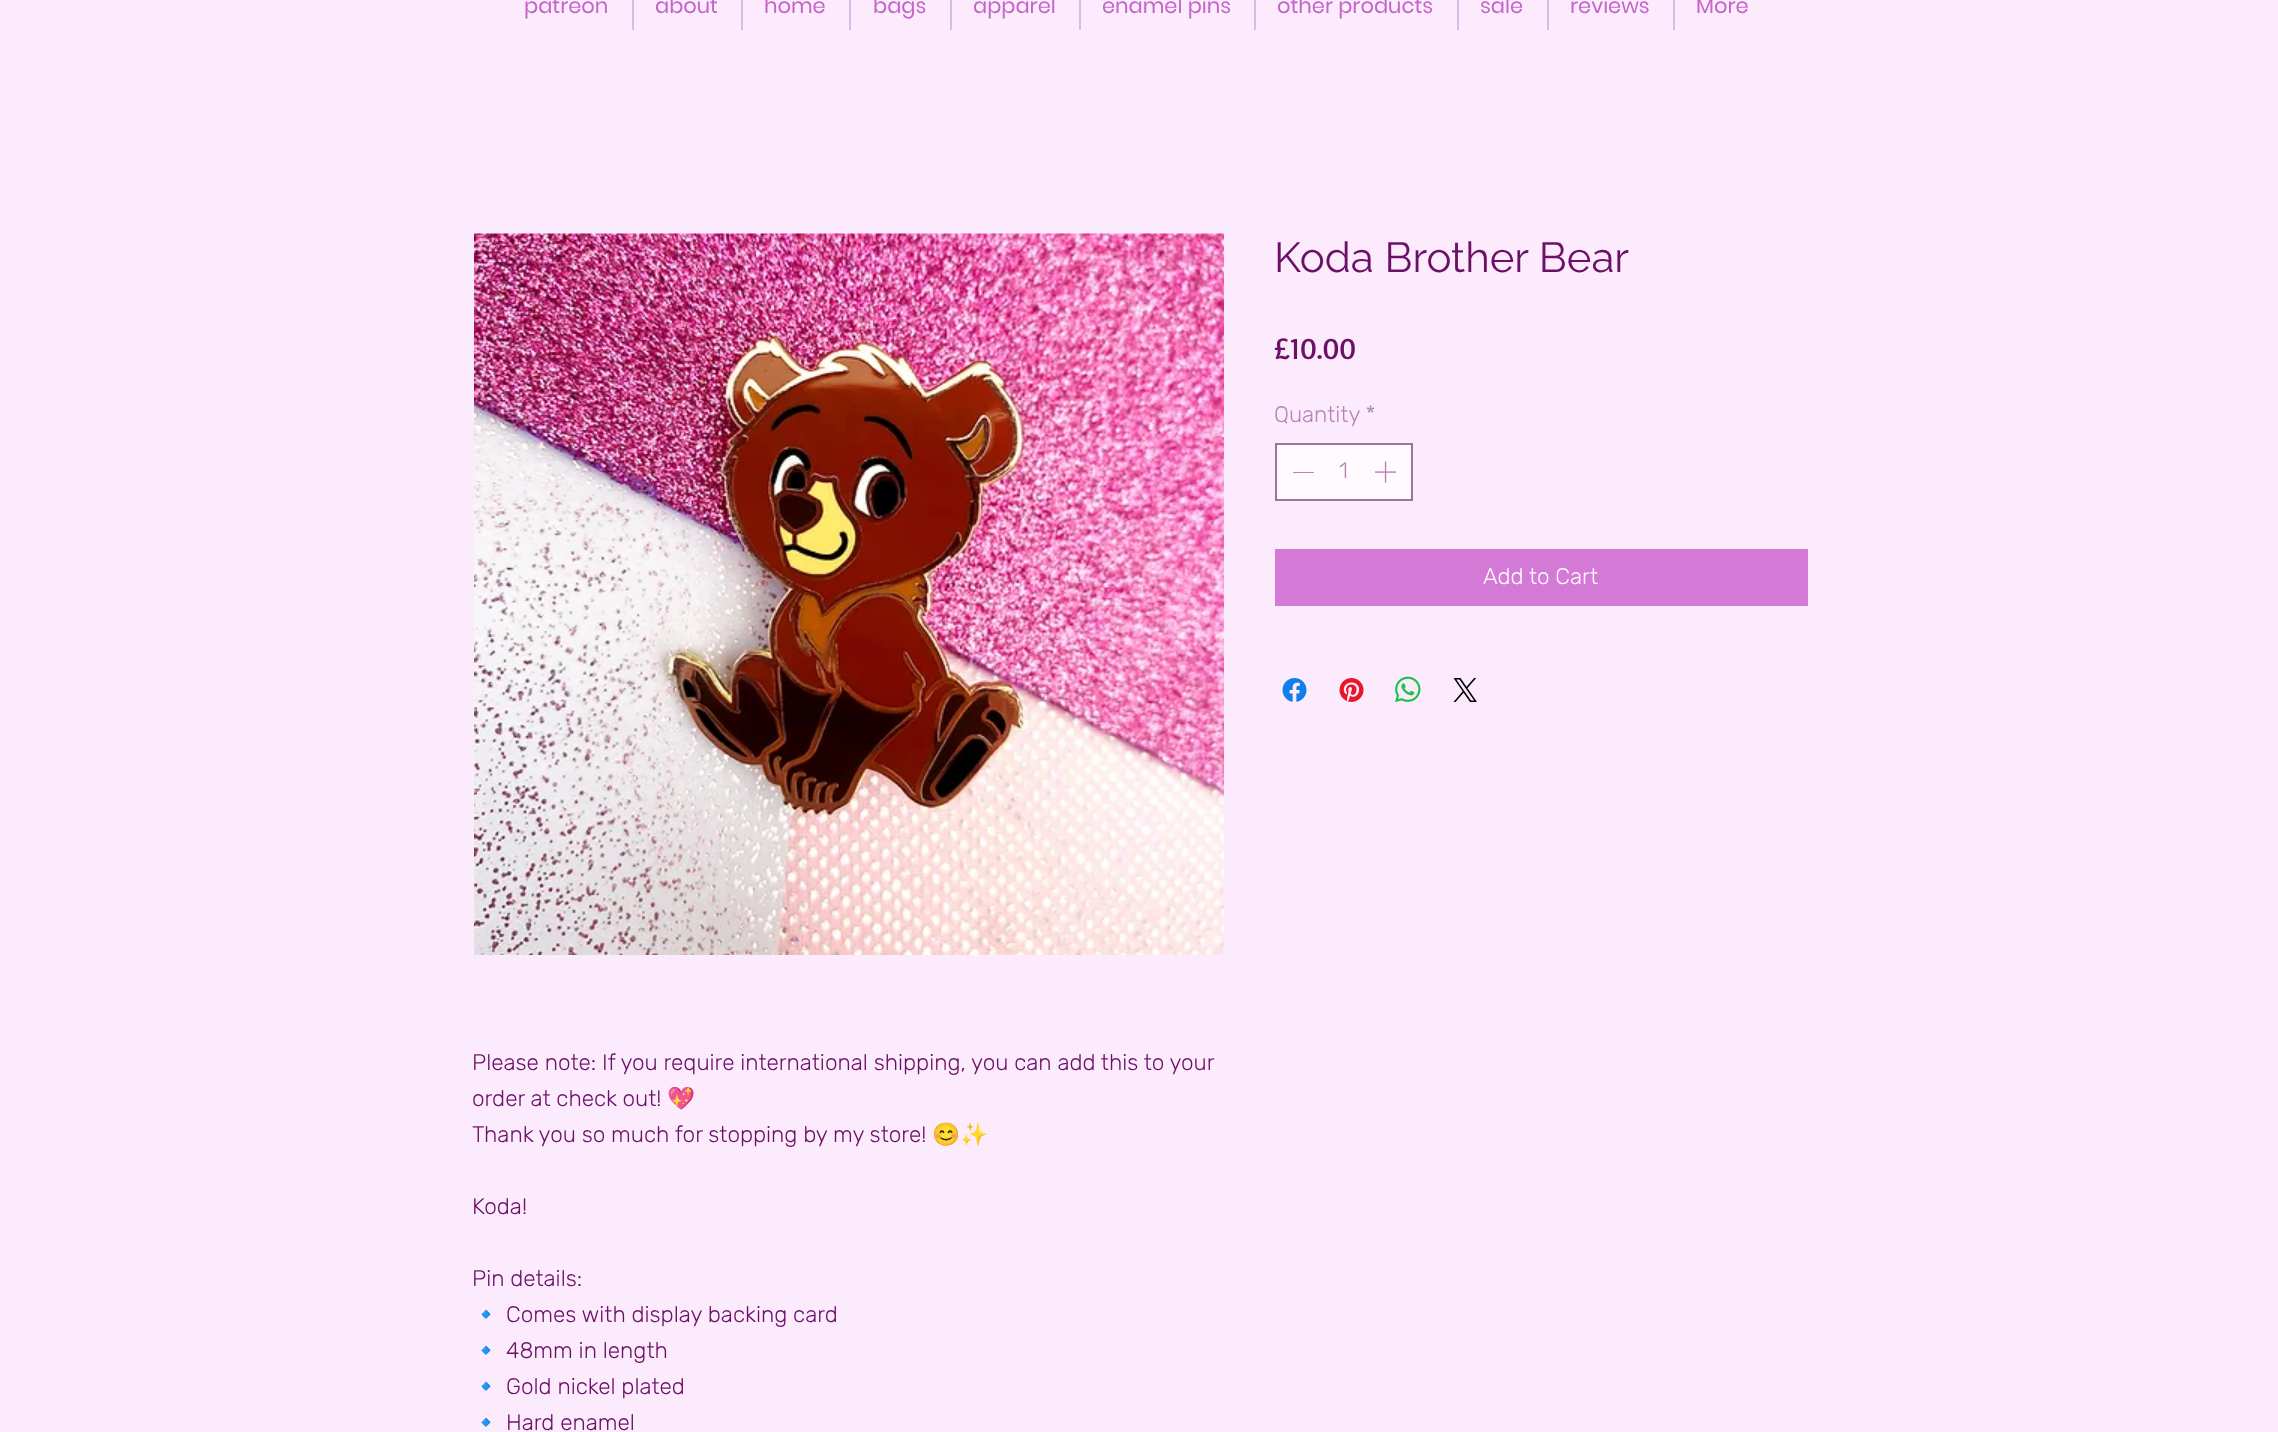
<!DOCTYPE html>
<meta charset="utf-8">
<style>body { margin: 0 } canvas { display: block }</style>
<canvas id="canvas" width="2278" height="1432"></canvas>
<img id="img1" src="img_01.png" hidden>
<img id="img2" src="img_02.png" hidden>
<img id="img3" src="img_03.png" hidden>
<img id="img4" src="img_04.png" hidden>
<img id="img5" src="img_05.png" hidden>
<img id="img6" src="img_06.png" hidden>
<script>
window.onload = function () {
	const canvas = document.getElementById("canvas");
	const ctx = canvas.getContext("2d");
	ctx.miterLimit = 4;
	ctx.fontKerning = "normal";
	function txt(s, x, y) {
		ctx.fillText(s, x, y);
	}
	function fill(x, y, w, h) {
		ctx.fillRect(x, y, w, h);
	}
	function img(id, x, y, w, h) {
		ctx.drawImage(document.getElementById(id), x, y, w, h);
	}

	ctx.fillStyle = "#FBEBFC";
	fill(0, 0, 2278, 1432);
	ctx.fillStyle = "#D8BDE2";
	fill(632, 0, 2, 30);
	fill(741, 0, 2, 30);
	fill(849, 0, 2, 30);
	fill(950, 0, 2, 30);
	fill(1079, 0, 2, 30);
	fill(1254, 0, 2, 30);
	fill(1457, 0, 2, 30);
	fill(1547, 0, 2, 30);
	fill(1673, 0, 2, 30);
	ctx.fillStyle = "#FFFAFE";
	ctx.beginPath();
	ctx.rect(1276, 444, 136, 56);
	ctx.fill();
	ctx.strokeStyle = "#A66DA3";
	ctx.lineWidth = 2;
	ctx.stroke();
	ctx.fillStyle = "#B585B3";
	fill(1293, 472, 21, 1);
	img("img1", 1375, 461, 22, 22);
	ctx.fillStyle = "#D379D6";
	fill(1275, 549, 533, 57);
	img("img2", 1282, 678, 25, 24);
	img("img3", 1339, 678, 25, 24);
	img("img4", 1395, 676, 26, 27);
	img("img5", 1453, 678, 24, 24);
	img("img6", 474, 233, 750, 722);
	ctx.font = "21px Poppins";
	ctx.fillStyle = "#C465C9";
	txt("patreon", 524, 13);
	txt("about", 655, 13);
	txt("home", 764, 13);
	txt("bags", 873, 13);
	txt("apparel", 973, 13);
	txt("enamel pins", 1102, 13);
	txt("other products", 1277, 13);
	txt("sale", 1480, 13);
	txt("reviews", 1570, 13);
	txt("More", 1696, 13);
	ctx.font = "42px Raleway";
	ctx.fillStyle = "#6B0F67";
	txt("Koda Brother Bear", 1274, 272);
	ctx.font = "30px Basic";
	txt("£10.00", 1274, 359);
	ctx.font = "300 22.5px Rubik";
	ctx.fillStyle = "#B585B3";
	txt("Quantity *", 1274, 422);
	txt("1", 1339, 478);
	ctx.fillStyle = "#FFFAFE";
	txt("Add to Cart", 1483, 584);
	ctx.fillStyle = "#6B0F67";
	txt("Please note: If you require international shipping, you can add this to your", 472, 1070);
	txt("order at check out!", 472, 1106);
	ctx.font = "22.5px Noto Color Emoji";
	txt("💖", 667, 1106);
	ctx.font = "300 22.5px Rubik";
	txt("Thank you so much for stopping by my store!", 472, 1142);
	ctx.font = "22.5px Noto Color Emoji";
	txt("😊✨", 932, 1142);
	ctx.font = "300 22.5px Rubik";
	txt("Koda!", 472, 1214);
	txt("Pin details:", 472, 1286);
	ctx.save();
	ctx.beginPath();
	ctx.rect(473, 1044, 750, 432);
	ctx.clip();
	ctx.font = "22.5px Noto Color Emoji";
	txt("🔹", 472, 1322);
	ctx.restore();
	txt("Comes with display backing card", 506, 1322);
	ctx.save();
	ctx.beginPath();
	ctx.rect(473, 1044, 750, 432);
	ctx.clip();
	ctx.font = "22.5px Noto Color Emoji";
	txt("🔹", 472, 1358);
	ctx.restore();
	txt("48mm in length", 506, 1358);
	ctx.save();
	ctx.beginPath();
	ctx.rect(473, 1044, 750, 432);
	ctx.clip();
	ctx.font = "22.5px Noto Color Emoji";
	txt("🔹", 472, 1394);
	ctx.restore();
	txt("Gold nickel plated", 506, 1394);
	ctx.save();
	ctx.beginPath();
	ctx.rect(473, 1044, 750, 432);
	ctx.clip();
	ctx.font = "22.5px Noto Color Emoji";
	txt("🔹", 472, 1430);
	ctx.restore();
	txt("Hard enamel", 506, 1430);
};
</script>
